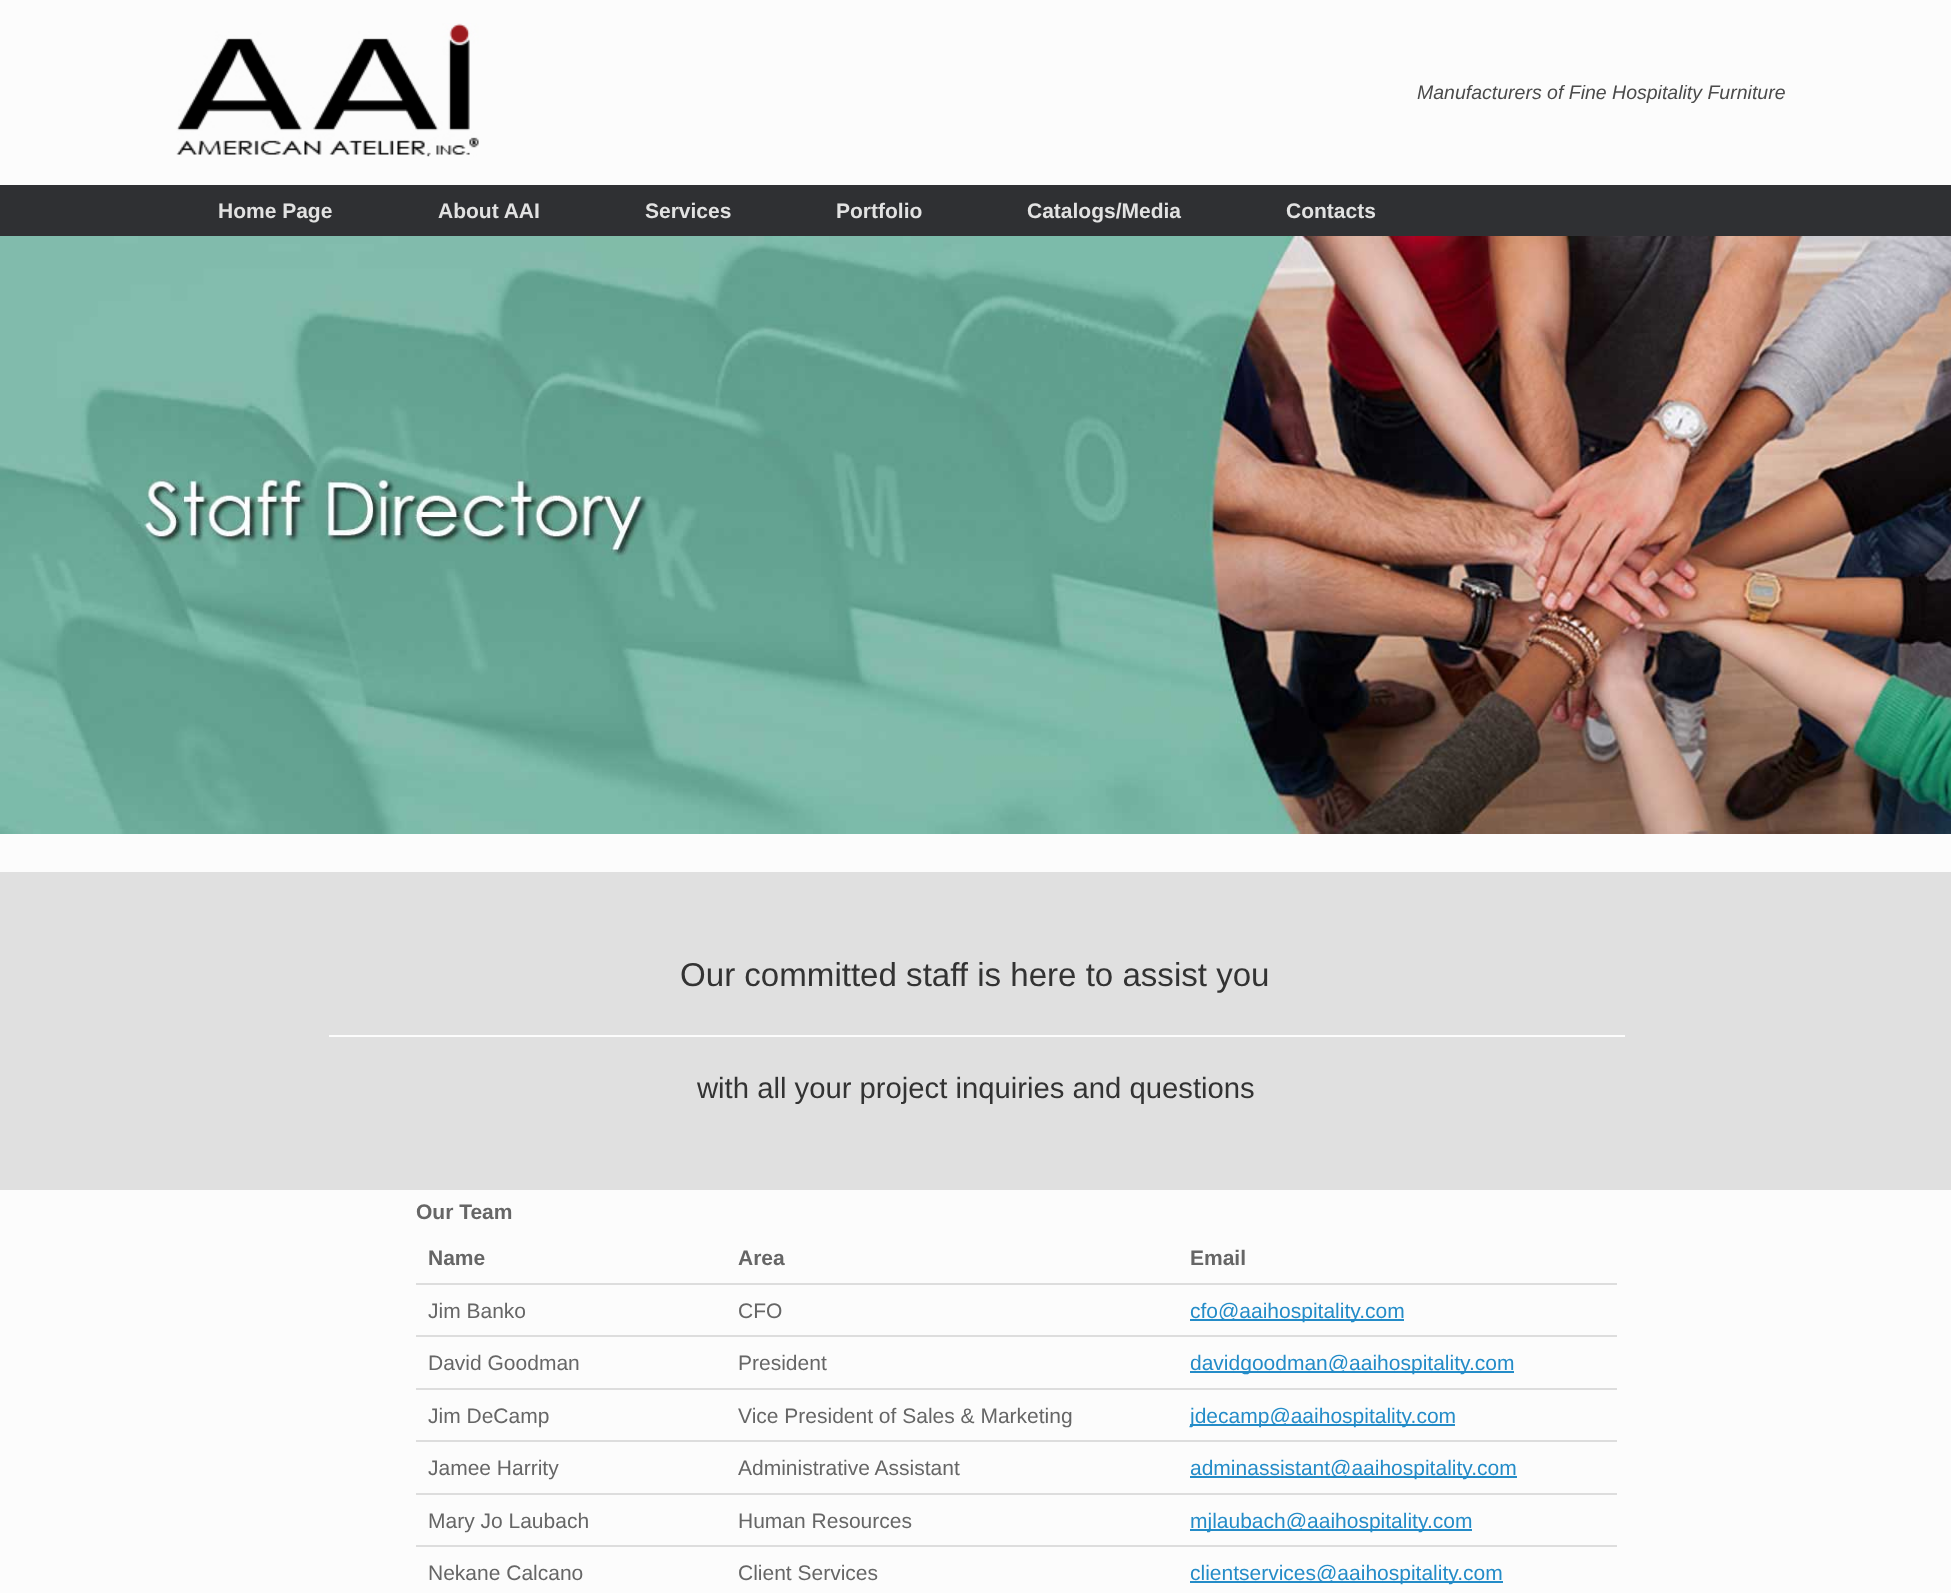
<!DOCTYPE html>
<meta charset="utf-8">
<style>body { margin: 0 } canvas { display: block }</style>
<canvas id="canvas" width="1951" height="1593"></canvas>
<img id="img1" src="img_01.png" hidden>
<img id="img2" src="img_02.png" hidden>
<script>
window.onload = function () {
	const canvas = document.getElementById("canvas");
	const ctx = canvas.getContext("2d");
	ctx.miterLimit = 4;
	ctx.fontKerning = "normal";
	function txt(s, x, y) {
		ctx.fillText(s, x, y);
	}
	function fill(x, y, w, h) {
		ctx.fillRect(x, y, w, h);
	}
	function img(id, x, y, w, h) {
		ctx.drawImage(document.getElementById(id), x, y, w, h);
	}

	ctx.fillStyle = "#FCFCFC";
	fill(0, 0, 1951, 1593);
	img("img1", 176, 23, 303, 134);
	ctx.fillStyle = "#2F3033";
	fill(0, 185, 1951, 51);
	img("img2", 0, 236, 1951, 598);
	ctx.fillStyle = "#E0E0E0";
	fill(0, 872, 1951, 318);
	ctx.fillStyle = "#FCFCFC";
	fill(329, 1035, 1296, 2);
	ctx.fillStyle = "#DDDDDD";
	fill(416, 1283, 1201, 2);
	ctx.fillStyle = "#248CC8";
	fill(1190, 1319, 214, 2);
	ctx.fillStyle = "#DDDDDD";
	fill(416, 1335, 1201, 2);
	ctx.fillStyle = "#248CC8";
	fill(1190, 1371, 324, 2);
	ctx.fillStyle = "#DDDDDD";
	fill(416, 1388, 1201, 2);
	ctx.fillStyle = "#248CC8";
	fill(1190, 1424, 265, 2);
	ctx.fillStyle = "#DDDDDD";
	fill(416, 1440, 1201, 2);
	ctx.fillStyle = "#248CC8";
	fill(1190, 1476, 327, 2);
	ctx.fillStyle = "#DDDDDD";
	fill(416, 1493, 1201, 2);
	ctx.fillStyle = "#248CC8";
	fill(1190, 1529, 282, 2);
	ctx.fillStyle = "#DDDDDD";
	fill(416, 1545, 1201, 2);
	ctx.fillStyle = "#248CC8";
	fill(1190, 1581, 313, 2);
	ctx.font = "italic 19.5px Liberation Sans";
	ctx.fillStyle = "#4B4B4B";
	txt("Manufacturers of Fine Hospitality Furniture", 1417, 99);
	ctx.font = "bold 21px Liberation Sans";
	ctx.fillStyle = "#E2E2E2";
	txt("Home Page", 218, 218);
	txt("About AAI", 438, 218);
	txt("Services", 645, 218);
	txt("Portfolio", 836, 218);
	txt("Catalogs/Media", 1027, 218);
	txt("Contacts", 1286, 218);
	ctx.font = "33.1px Liberation Sans";
	ctx.fillStyle = "#333333";
	txt("Our committed staff is here to assist you", 680, 986);
	ctx.font = "29.25px Liberation Sans";
	txt("with all your project inquiries and questions", 697, 1098);
	ctx.font = "bold 21px Liberation Sans";
	ctx.fillStyle = "#666666";
	txt("Our Team", 416, 1219);
	txt("Name", 428, 1265);
	txt("Area", 738, 1265);
	txt("Email", 1190, 1265);
	ctx.font = "21px Liberation Sans";
	txt("Jim Banko", 428, 1318);
	txt("CFO", 738, 1318);
	ctx.fillStyle = "#248CC8";
	txt("cfo@aaihospitality.com", 1190, 1318);
	ctx.fillStyle = "#666666";
	txt("David Goodman", 428, 1370);
	txt("President", 738, 1370);
	ctx.fillStyle = "#248CC8";
	txt("davidgoodman@aaihospitality.com", 1190, 1370);
	ctx.fillStyle = "#666666";
	txt("Jim DeCamp", 428, 1423);
	txt("Vice President of Sales & Marketing", 738, 1423);
	ctx.fillStyle = "#248CC8";
	txt("jdecamp@aaihospitality.com", 1190, 1423);
	ctx.fillStyle = "#666666";
	txt("Jamee Harrity", 428, 1475);
	txt("Administrative Assistant", 738, 1475);
	ctx.fillStyle = "#248CC8";
	txt("adminassistant@aaihospitality.com", 1190, 1475);
	ctx.fillStyle = "#666666";
	txt("Mary Jo Laubach", 428, 1528);
	txt("Human Resources", 738, 1528);
	ctx.fillStyle = "#248CC8";
	txt("mjlaubach@aaihospitality.com", 1190, 1528);
	ctx.fillStyle = "#666666";
	txt("Nekane Calcano", 428, 1580);
	txt("Client Services", 738, 1580);
	ctx.fillStyle = "#248CC8";
	txt("clientservices@aaihospitality.com", 1190, 1580);
};
</script>
